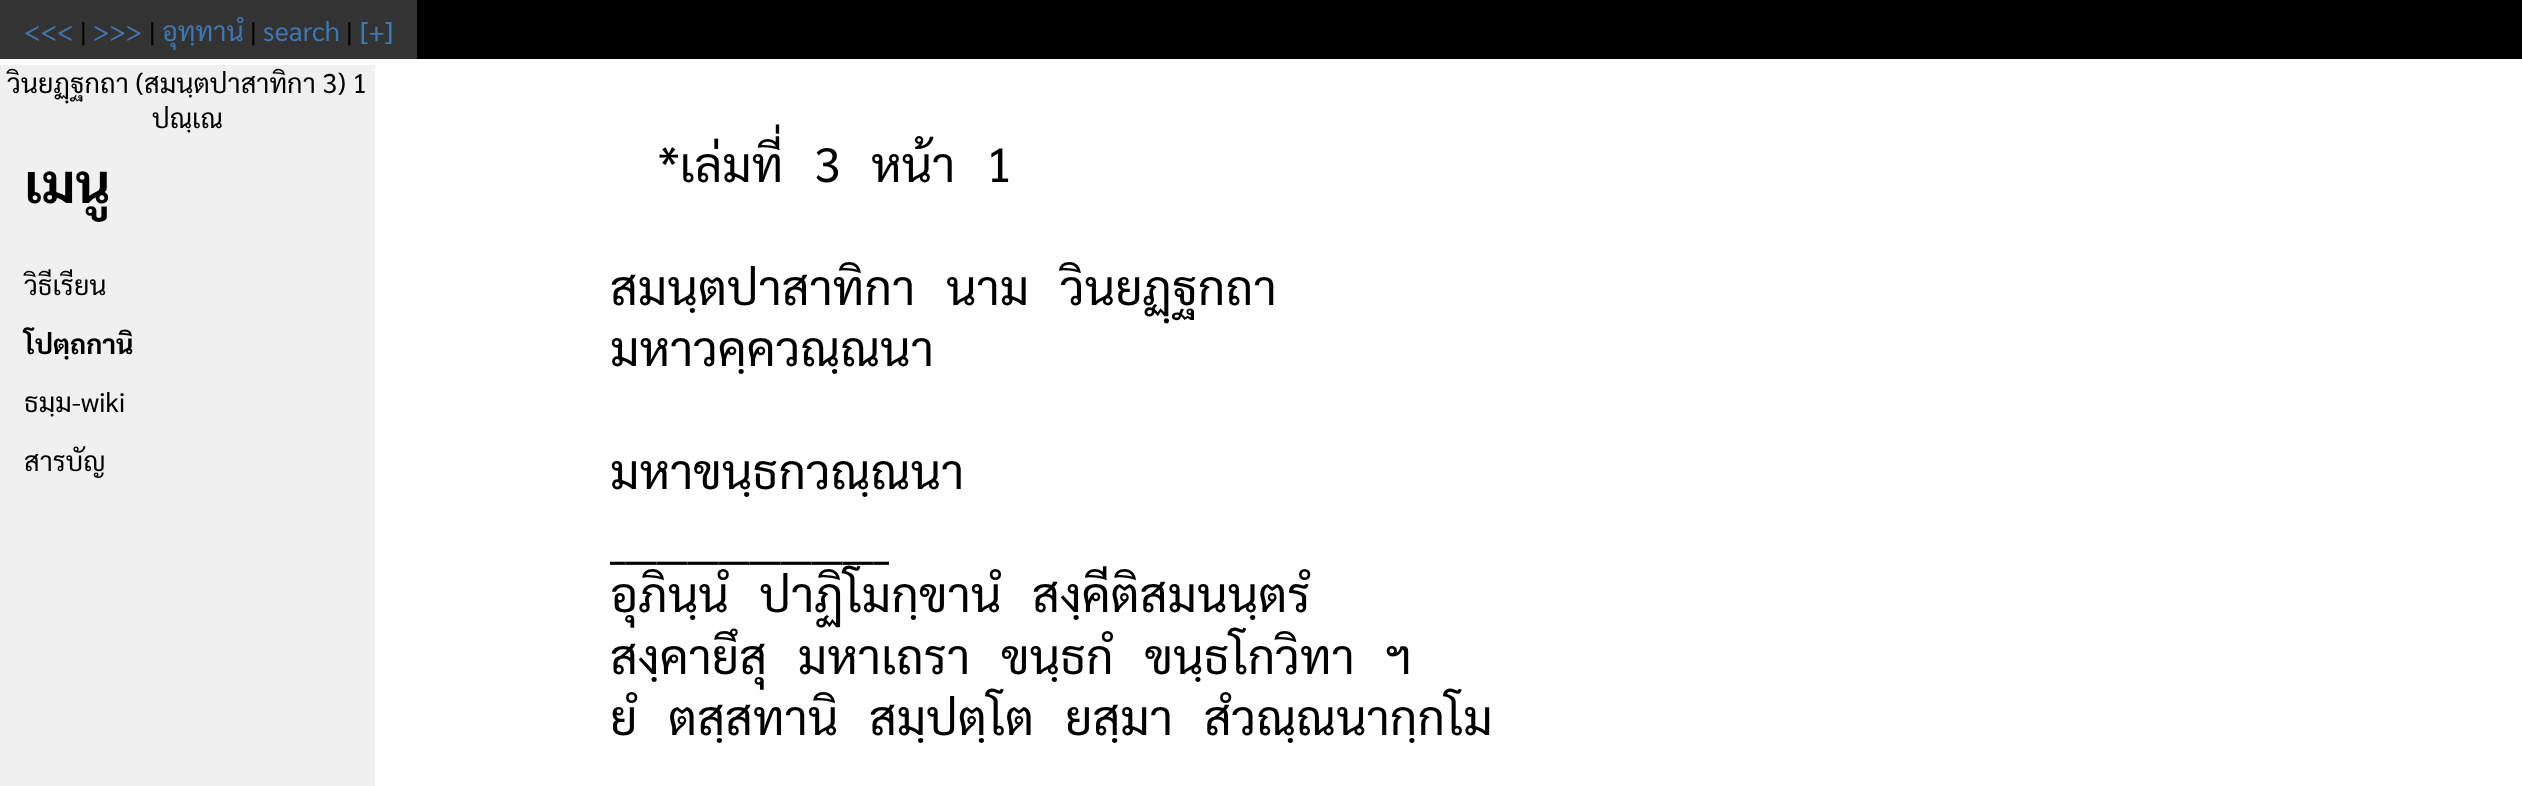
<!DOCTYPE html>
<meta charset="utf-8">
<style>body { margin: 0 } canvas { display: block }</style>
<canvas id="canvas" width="2522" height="786"></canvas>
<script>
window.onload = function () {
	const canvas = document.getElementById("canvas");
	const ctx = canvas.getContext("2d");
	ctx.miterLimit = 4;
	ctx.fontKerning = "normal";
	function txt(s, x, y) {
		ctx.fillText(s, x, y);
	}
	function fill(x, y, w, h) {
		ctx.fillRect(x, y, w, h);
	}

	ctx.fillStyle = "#FFFFFF";
	fill(0, 0, 2522, 786);
	ctx.fillStyle = "#000000";
	fill(417, 0, 2105, 59);
	ctx.fillStyle = "#333333";
	fill(0, 0, 417, 59);
	ctx.fillStyle = "#F0F0F0";
	fill(0, 65, 375, 721);
	ctx.font = "27px Sarabun";
	ctx.fillStyle = "#3D78B4";
	txt("<<<", 24, 41);
	ctx.fillStyle = "#000000";
	txt("|", 80, 41);
	ctx.fillStyle = "#3D78B4";
	txt(">>>", 93, 41);
	ctx.fillStyle = "#000000";
	txt("|", 149, 41);
	ctx.fillStyle = "#3D78B4";
	txt("อุทฺทานํ", 162, 41);
	ctx.fillStyle = "#000000";
	txt("|", 250, 41);
	ctx.fillStyle = "#3D78B4";
	txt("search", 263, 41);
	ctx.fillStyle = "#000000";
	txt("|", 346, 41);
	ctx.fillStyle = "#3D78B4";
	txt("[+]", 360, 41);
	ctx.fillStyle = "#000000";
	txt("วินยฏฺฐกถา (สมนฺตปาสาทิกา 3) 1", 7, 93);
	txt("ปณฺเณ", 152, 128);
	ctx.font = "bold 54px Sarabun";
	txt("เมนู", 24, 203);
	ctx.font = "27px Sarabun";
	txt("วิธีเรียน", 24, 295);
	ctx.font = "bold 27px Sarabun";
	txt("โปตฺถกานิ", 24, 354);
	ctx.font = "27px Sarabun";
	txt("ธมฺม-wiki", 24, 412);
	txt("สารบัญ", 24, 471);
	ctx.font = "48px Sarabun";
	txt("*เล่มที่", 658, 182);
	txt("3", 814, 182);
	ctx.wordSpacing = "19px";
	txt("หน้า 1", 871, 182);
	txt("สมนฺตปาสาทิกา นาม วินยฏฺฐกถา", 610, 305);
	ctx.wordSpacing = "0px";
	txt("มหาวคฺควณฺณนา", 610, 366);
	txt("มหาขนฺธกวณฺณนา", 610, 489);
	txt("__________________", 610, 551);
	ctx.wordSpacing = "19px";
	txt("อุภินฺนํ ปาฏิโมกฺขานํ", 610, 612);
	ctx.wordSpacing = "0px";
	txt("สงฺคีติสมนนฺตรํ", 1032, 612);
	ctx.wordSpacing = "19px";
	txt("สงฺคายึสุ มหาเถรา", 610, 674);
	txt("ขนฺธกํ ขนฺธโกวิทา ฯ", 1001, 674);
	txt("ยํ ตสฺสทานิ สมฺปตฺโต", 610, 735);
	txt("ยสฺมา สํวณฺณนากฺกโม", 1065, 735);
};
</script>
